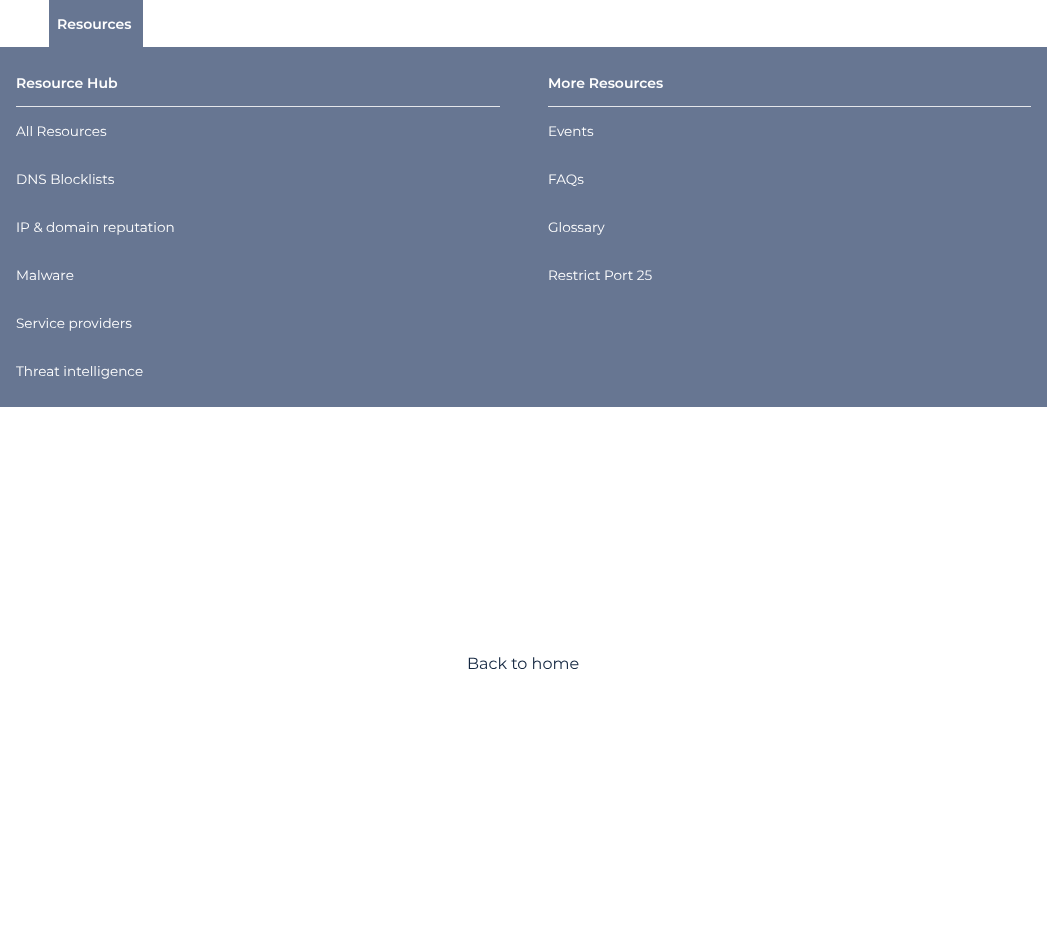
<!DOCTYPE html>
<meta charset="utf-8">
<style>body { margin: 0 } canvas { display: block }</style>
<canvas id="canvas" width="1047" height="936"></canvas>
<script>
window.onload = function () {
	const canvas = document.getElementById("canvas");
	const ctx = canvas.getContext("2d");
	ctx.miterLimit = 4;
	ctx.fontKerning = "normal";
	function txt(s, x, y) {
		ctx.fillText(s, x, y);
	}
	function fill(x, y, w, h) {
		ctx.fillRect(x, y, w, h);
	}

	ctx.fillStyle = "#FFFFFF";
	fill(0, 0, 1047, 936);
	ctx.fillStyle = "#677692";
	fill(49, 0, 94, 47);
	fill(0, 47, 1047, 360);
	ctx.fillStyle = "#E5E7EB";
	fill(16, 106, 484, 1);
	fill(548, 106, 483, 1);
	ctx.font = "600 14px Montserrat";
	ctx.fillStyle = "#FFFFFF";
	txt("Resources", 57, 29);
	txt("Resource Hub", 16, 88);
	ctx.font = "13.6px Montserrat";
	txt("All Resources", 16, 136);
	txt("DNS Blocklists", 16, 184);
	txt("IP & domain reputation", 16, 232);
	txt("Malware", 16, 280);
	txt("Service providers", 16, 328);
	txt("Threat intelligence", 16, 376);
	ctx.font = "600 14px Montserrat";
	txt("More Resources", 548, 88);
	ctx.font = "13.6px Montserrat";
	txt("Events", 548, 136);
	txt("FAQs", 548, 184);
	txt("Glossary", 548, 232);
	txt("Restrict Port 25", 548, 280);
	ctx.font = "16px Montserrat";
	ctx.fillStyle = "#142741";
	txt("Back to home", 467, 669);
};
</script>
